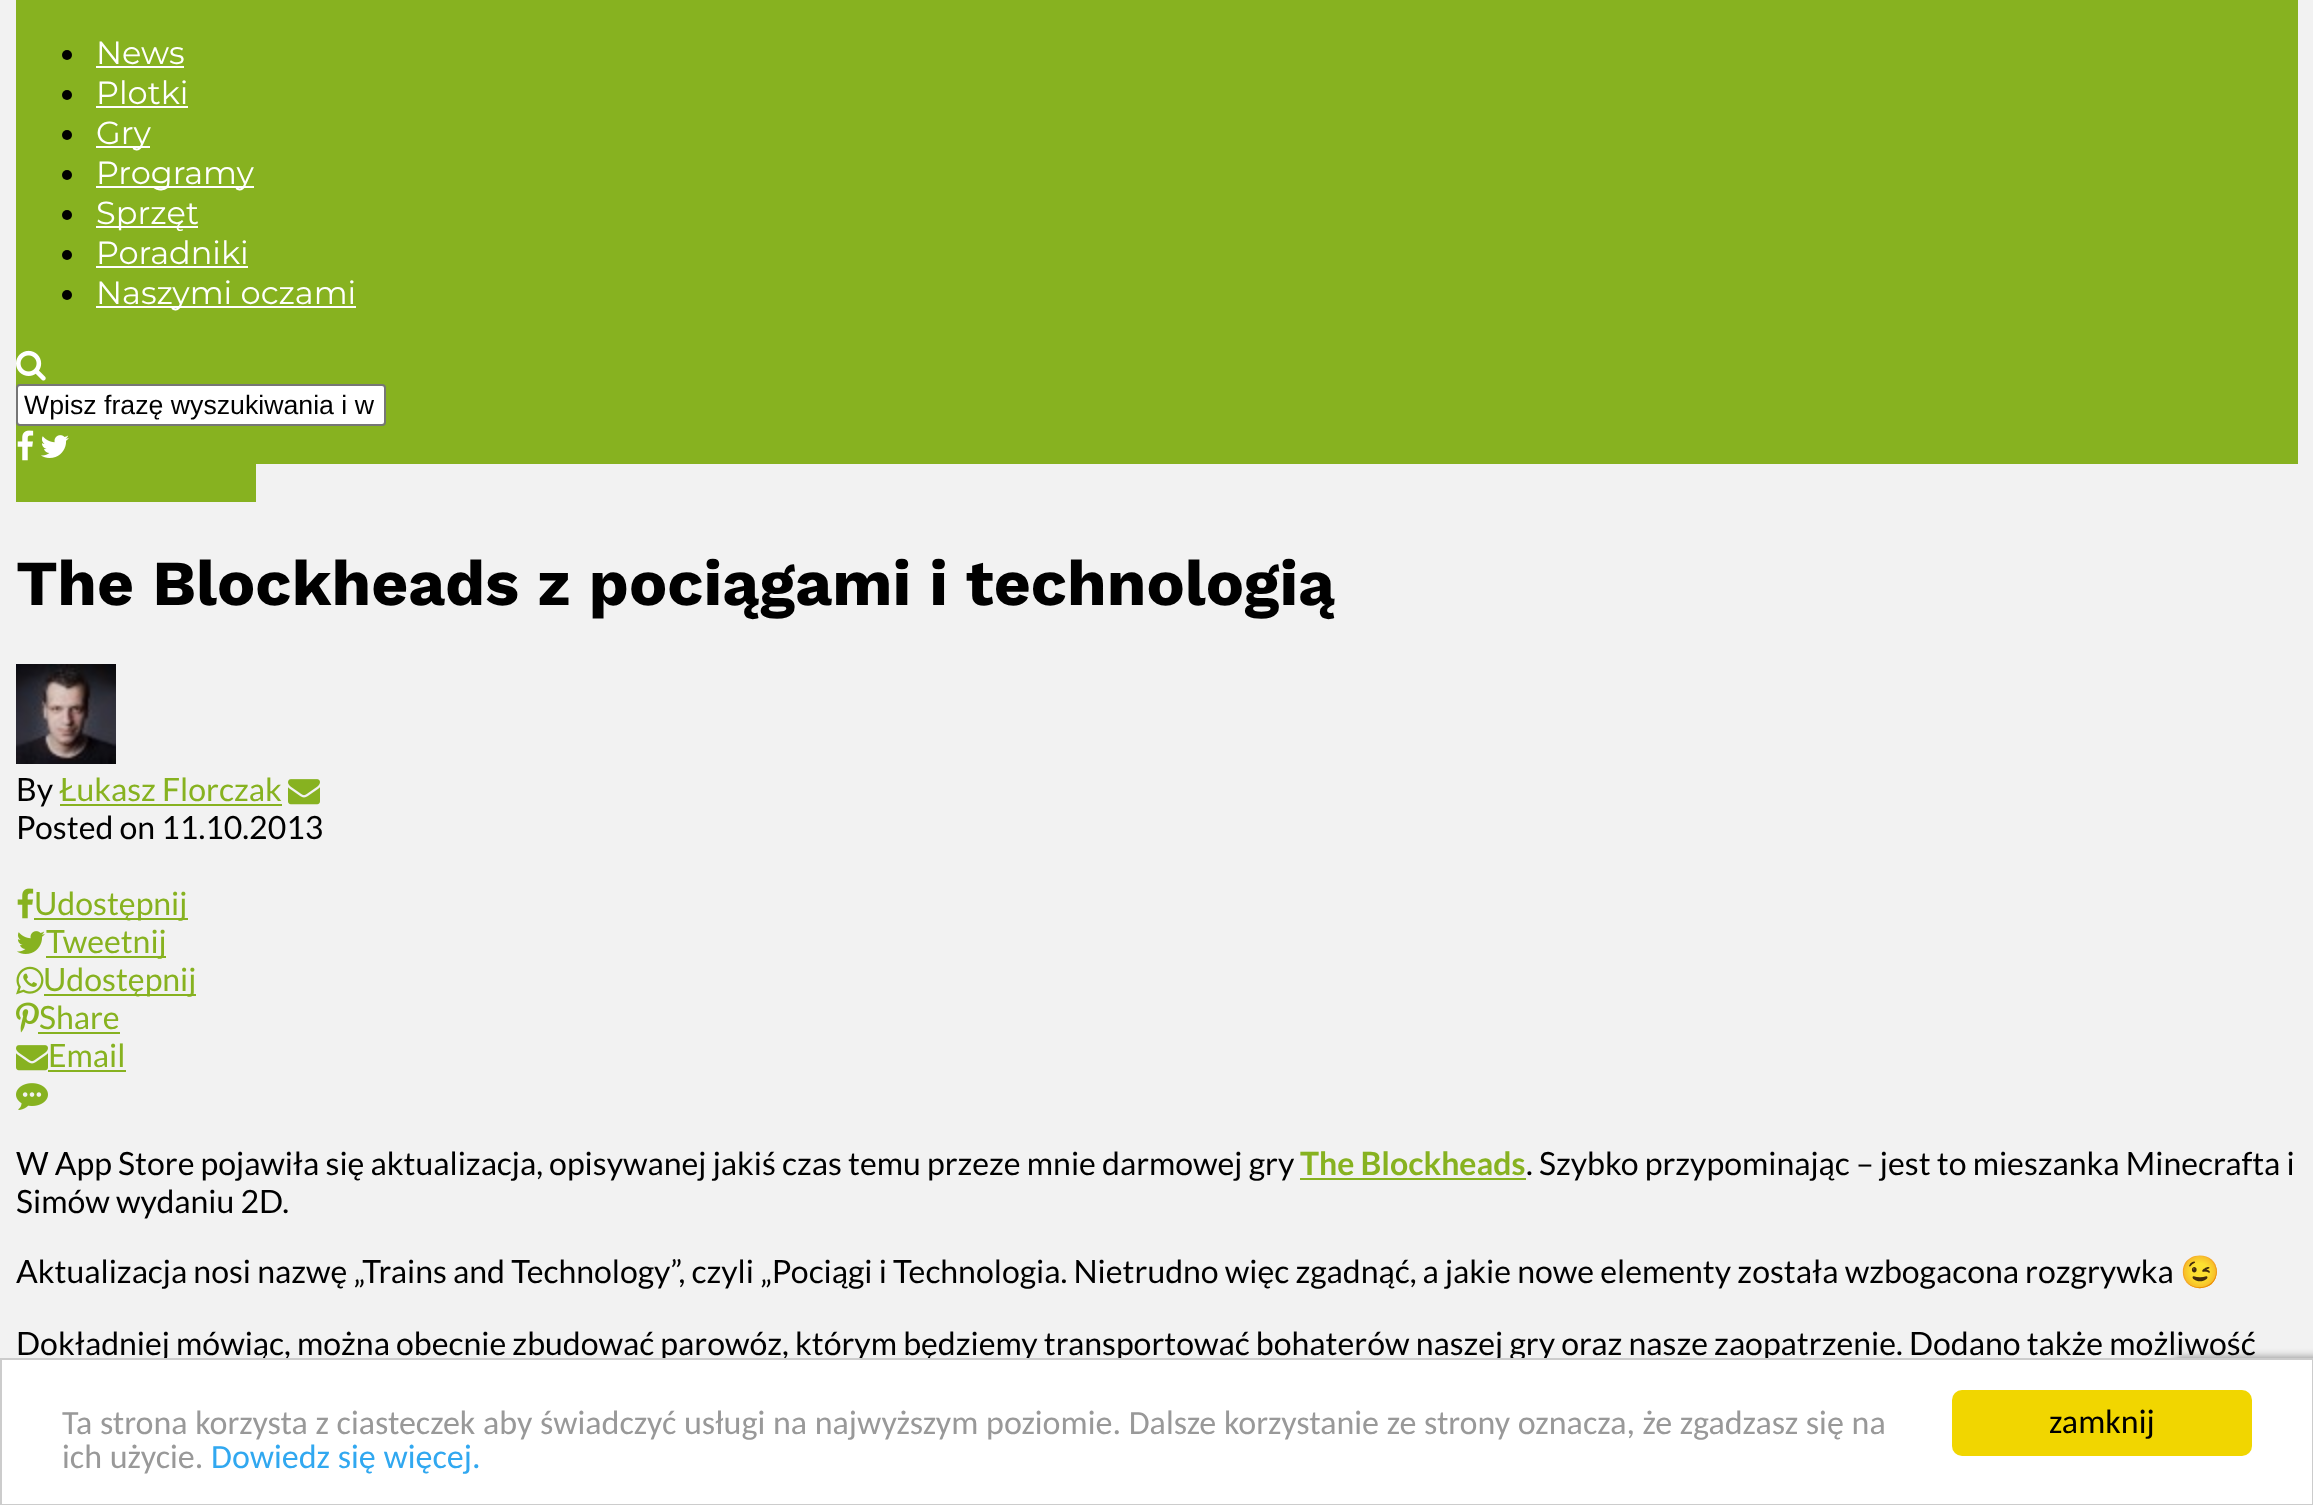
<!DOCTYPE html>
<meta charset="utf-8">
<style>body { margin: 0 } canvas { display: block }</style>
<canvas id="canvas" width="2313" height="1505"></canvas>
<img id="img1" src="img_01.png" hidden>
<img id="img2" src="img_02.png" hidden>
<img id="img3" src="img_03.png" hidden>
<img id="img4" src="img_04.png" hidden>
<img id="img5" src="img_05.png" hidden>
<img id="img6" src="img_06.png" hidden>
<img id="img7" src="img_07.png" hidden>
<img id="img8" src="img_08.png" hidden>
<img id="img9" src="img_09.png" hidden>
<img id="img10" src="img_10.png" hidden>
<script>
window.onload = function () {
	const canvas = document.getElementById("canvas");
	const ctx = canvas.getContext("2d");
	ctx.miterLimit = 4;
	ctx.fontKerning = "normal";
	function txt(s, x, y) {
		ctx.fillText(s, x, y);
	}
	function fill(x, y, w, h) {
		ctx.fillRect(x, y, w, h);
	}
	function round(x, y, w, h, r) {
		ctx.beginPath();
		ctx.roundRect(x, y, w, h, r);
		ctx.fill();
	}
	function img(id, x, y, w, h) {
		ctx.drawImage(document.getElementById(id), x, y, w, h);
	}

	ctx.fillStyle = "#F2F2F2";
	fill(0, 0, 2313, 1505);
	ctx.fillStyle = "#87B220";
	fill(16, 0, 2282, 464);
	ctx.fillStyle = "#000000";
	ctx.beginPath();
	ctx.arc(67, 55, 5, 0, Math.PI * 2);
	ctx.fill();
	ctx.fillStyle = "#FFFFFF";
	fill(96, 66, 88, 2);
	ctx.fillStyle = "#000000";
	ctx.beginPath();
	ctx.arc(67, 95, 5, 0, Math.PI * 2);
	ctx.fill();
	ctx.fillStyle = "#FFFFFF";
	fill(96, 106, 92, 2);
	ctx.fillStyle = "#000000";
	ctx.beginPath();
	ctx.arc(67, 135, 5, 0, Math.PI * 2);
	ctx.fill();
	ctx.fillStyle = "#FFFFFF";
	fill(96, 146, 54, 2);
	ctx.fillStyle = "#000000";
	ctx.beginPath();
	ctx.arc(67, 175, 5, 0, Math.PI * 2);
	ctx.fill();
	ctx.fillStyle = "#FFFFFF";
	fill(96, 186, 158, 2);
	ctx.fillStyle = "#000000";
	ctx.beginPath();
	ctx.arc(67, 215, 5, 0, Math.PI * 2);
	ctx.fill();
	ctx.fillStyle = "#FFFFFF";
	fill(96, 226, 102, 2);
	ctx.fillStyle = "#000000";
	ctx.beginPath();
	ctx.arc(67, 255, 5, 0, Math.PI * 2);
	ctx.fill();
	ctx.fillStyle = "#FFFFFF";
	fill(96, 266, 152, 2);
	ctx.fillStyle = "#000000";
	ctx.beginPath();
	ctx.arc(67, 295, 5, 0, Math.PI * 2);
	ctx.fill();
	ctx.fillStyle = "#FFFFFF";
	fill(96, 306, 260, 2);
	img("img1", 16, 350, 30, 31);
	ctx.beginPath();
	ctx.roundRect(17, 385, 368, 40, 3);
	ctx.fill();
	ctx.strokeStyle = "#767676";
	ctx.lineWidth = 2;
	ctx.stroke();
	img("img2", 17, 430, 17, 31);
	img("img3", 41, 435, 28, 23);
	ctx.fillStyle = "#87B220";
	fill(16, 464, 240, 38);
	img("img4", 16, 664, 100, 100);
	fill(60, 804, 222, 2);
	img("img5", 288, 779, 32, 26);
	img("img6", 17, 888, 17, 31);
	fill(34, 918, 154, 2);
	img("img7", 17, 931, 28, 23);
	fill(46, 956, 120, 2);
	img("img8", 16, 966, 28, 29);
	fill(44, 994, 152, 2);
	img("img9", 16, 1002, 23, 31);
	fill(38, 1032, 82, 2);
	img("img5", 16, 1045, 32, 26);
	fill(48, 1070, 78, 2);
	img("img10", 16, 1083, 32, 27);
	fill(1300, 1178, 226, 2);
	ctx.fillStyle = "#808080";
	ctx.filter = "blur(5px)";
	ctx.beginPath();
	ctx.roundRect(2174, 1358, 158, 120, 4);
	ctx.fill();
	ctx.filter = "none";
	ctx.font = "32px Montserrat";
	ctx.fillStyle = "#FFFFFF";
	txt("News", 96, 64);
	txt("Plotki", 96, 104);
	txt("Gry", 96, 144);
	txt("Programy", 96, 184);
	txt("Sprzęt", 96, 224);
	txt("Poradniki", 96, 264);
	txt("Naszymi oczami", 96, 304);
	ctx.font = "26.7px Liberation Sans";
	ctx.fillStyle = "#000000";
	txt("Wpisz frazę wyszukiwania i w", 24, 414);
	ctx.font = "bold 64px Work Sans";
	txt("The Blockheads z pociągami i technologią", 16, 605);
	ctx.font = "32px Lato";
	txt("By", 16, 801);
	ctx.fillStyle = "#87B220";
	txt("Łukasz Florczak", 59, 801);
	ctx.fillStyle = "#000000";
	txt("Posted on 11.10.2013", 16, 839);
	ctx.fillStyle = "#87B220";
	txt("Udostępnij", 34, 915);
	txt("Tweetnij", 46, 953);
	txt("Udostępnij", 43, 991);
	txt("Share", 39, 1029);
	txt("Email", 48, 1067);
	ctx.fillStyle = "#000000";
	txt("W App Store pojawiła się aktualizacja, opisywanej jakiś czas temu przeze mnie darmowej gry", 16, 1175);
	ctx.font = "bold 32px Lato";
	ctx.fillStyle = "#87B220";
	txt("The Blockheads", 1300, 1175);
	ctx.font = "32px Lato";
	ctx.fillStyle = "#000000";
	txt(". Szybko przypominając – jest to mieszanka Minecrafta i", 1526, 1175);
	txt("Simów wydaniu 2D.", 16, 1213);
	txt("Aktualizacja nosi nazwę „Trains and Technology”, czyli „Pociągi i Technologia. Nietrudno więc zgadnąć, a jakie nowe elementy została wzbogacona rozgrywka", 16, 1283);
	ctx.font = "32px Noto Color Emoji";
	txt("😉", 2180, 1283);
	ctx.font = "32px Lato";
	txt("Dokładniej mówiąc, można obecnie zbudować parowóz, którym będziemy transportować bohaterów naszej gry oraz nasze zaopatrzenie. Dodano także możliwość", 16, 1355);
	ctx.fillStyle = "#FFFFFF";
	ctx.beginPath();
	ctx.rect(1, 1359, 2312, 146);
	ctx.fill();
	ctx.strokeStyle = "#CCCCCC";
	ctx.stroke();
	ctx.font = "34px Carlito";
	ctx.fillStyle = "#999999";
	txt("Ta strona korzysta z ciasteczek aby świadczyć usługi na najwyższym poziomie. Dalsze korzystanie ze strony oznacza, że zgadzasz się na", 62, 1434);
	txt("ich użycie.", 62, 1468);
	ctx.fillStyle = "#31A8F0";
	txt("Dowiedz się więcej.", 211, 1468);
	ctx.fillStyle = "#F1D600";
	round(1952, 1390, 300, 66, 10);
	ctx.fillStyle = "#000000";
	txt("zamknij", 2049, 1433);
};
</script>
